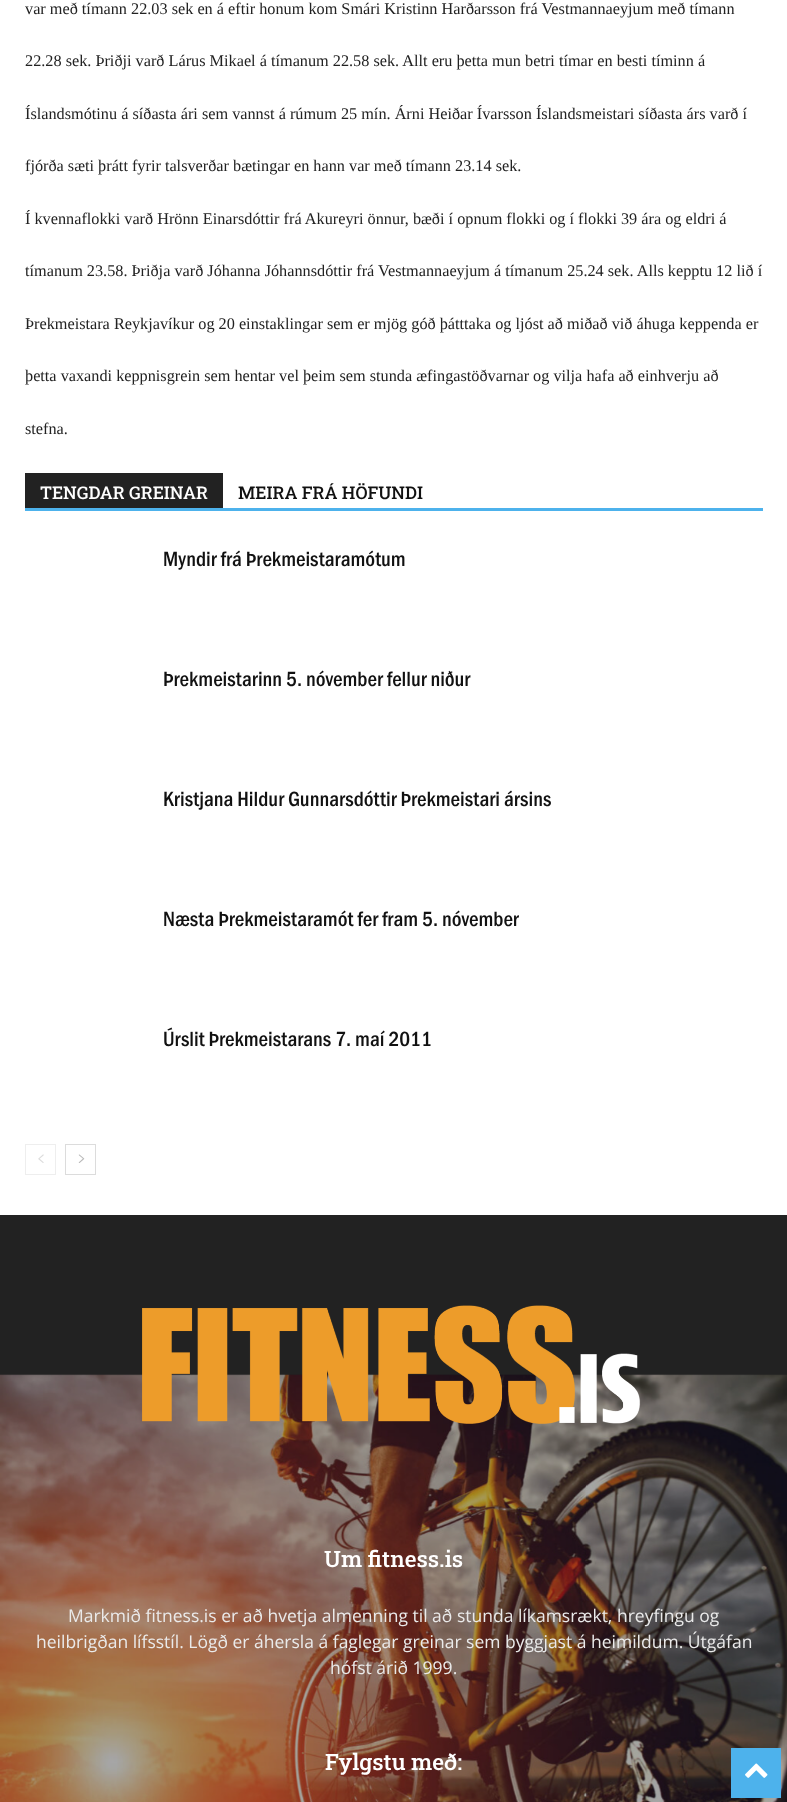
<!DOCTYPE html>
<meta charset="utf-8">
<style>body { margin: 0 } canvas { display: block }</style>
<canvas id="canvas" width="787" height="1802"></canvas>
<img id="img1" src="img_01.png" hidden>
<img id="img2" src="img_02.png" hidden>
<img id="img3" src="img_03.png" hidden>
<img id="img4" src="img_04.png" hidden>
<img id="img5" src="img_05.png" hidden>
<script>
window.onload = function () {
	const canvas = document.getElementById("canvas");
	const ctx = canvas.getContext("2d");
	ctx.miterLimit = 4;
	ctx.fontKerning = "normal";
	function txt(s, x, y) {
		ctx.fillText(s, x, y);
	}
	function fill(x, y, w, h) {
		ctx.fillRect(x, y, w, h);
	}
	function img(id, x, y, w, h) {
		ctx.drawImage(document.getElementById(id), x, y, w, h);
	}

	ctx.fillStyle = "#FFFFFF";
	fill(0, 0, 787, 1802);
	ctx.fillStyle = "#4DB2EC";
	fill(25, 508, 738, 3);
	ctx.fillStyle = "#222222";
	fill(25, 473, 198, 35);
	ctx.strokeStyle = "#EEEEEE";
	ctx.strokeRect(25.5, 1144.5, 30, 30);
	img("img1", 38, 1154, 6, 9);
	ctx.strokeStyle = "#DCDCDC";
	ctx.strokeRect(65.5, 1144.5, 30, 30);
	img("img2", 78, 1154, 7, 9);
	fill(0, 1215, 787, 587);
	img("img3", 0, 1374, 787, 428);
	img("img4", 142, 1305, 499, 119);
	ctx.fillStyle = "#4DB2EC";
	fill(731, 1748, 50, 50);
	img("img5", 745, 1763, 23, 15);
	ctx.font = "16.25px Liberation Serif";
	ctx.fillStyle = "#222222";
	txt("var með tímann 22.03 sek en á eftir honum kom Smári Kristinn Harðarsson frá Vestmannaeyjum með tímann", 25, 14);
	txt("22.28 sek. Þriðji varð Lárus Mikael á tímanum 22.58 sek. Allt eru þetta mun betri tímar en besti tíminn á", 25, 66);
	txt("Íslandsmótinu á síðasta ári sem vannst á rúmum 25 mín. Árni Heiðar Ívarsson Íslandsmeistari síðasta árs varð í", 25, 119);
	txt("fjórða sæti þrátt fyrir talsverðar bætingar en hann var með tímann 23.14 sek.", 25, 171);
	txt("Í kvennaflokki varð Hrönn Einarsdóttir frá Akureyri önnur, bæði í opnum flokki og í flokki 39 ára og eldri á", 25, 224);
	txt("tímanum 23.58. Þriðja varð Jóhanna Jóhannsdóttir frá Vestmannaeyjum á tímanum 25.24 sek. Alls kepptu 12 lið í", 25, 276);
	txt("Þrekmeistara Reykjavíkur og 20 einstaklingar sem er mjög góð þátttaka og ljóst að miðað við áhuga keppenda er", 25, 329);
	txt("þetta vaxandi keppnisgrein sem hentar vel þeim sem stunda æfingastöðvarnar og vilja hafa að einhverju að", 25, 381);
	txt("stefna.", 25, 434);
	ctx.font = "500 17.5px Roboto Slab";
	ctx.fillStyle = "#FFFFFF";
	txt("TENGDAR GREINAR", 40, 499);
	ctx.fillStyle = "#111111";
	txt("MEIRA FRÁ HÖFUNDI", 238, 499);
	ctx.font = "500 21.25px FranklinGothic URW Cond";
	txt("Myndir frá Þrekmeistaramótum", 163, 566);
	txt("Þrekmeistarinn 5. nóvember fellur niður", 163, 686);
	txt("Kristjana Hildur Gunnarsdóttir Þrekmeistari ársins", 163, 806);
	txt("Næsta Þrekmeistaramót fer fram 5. nóvember", 163, 926);
	txt("Úrslit Þrekmeistarans 7. maí 2011", 163, 1046);
	ctx.font = "500 22.5px Roboto Slab";
	ctx.fillStyle = "#FFFFFF";
	txt("Um fitness.is", 324, 1567);
	ctx.font = "17.5px Open Sans";
	ctx.fillStyle = "#EAEAEA";
	txt("Markmið fitness.is er að hvetja almenning til að stunda líkamsrækt, hreyfingu og", 68, 1622);
	txt("heilbrigðan lífsstíl. Lögð er áhersla á faglegar greinar sem byggjast á heimildum. Útgáfan", 36, 1648);
	txt("hófst árið 1999.", 330, 1674);
	ctx.font = "500 22.5px Roboto Slab";
	ctx.fillStyle = "#FFFFFF";
	txt("Fylgstu með:", 325, 1770);
};
</script>
